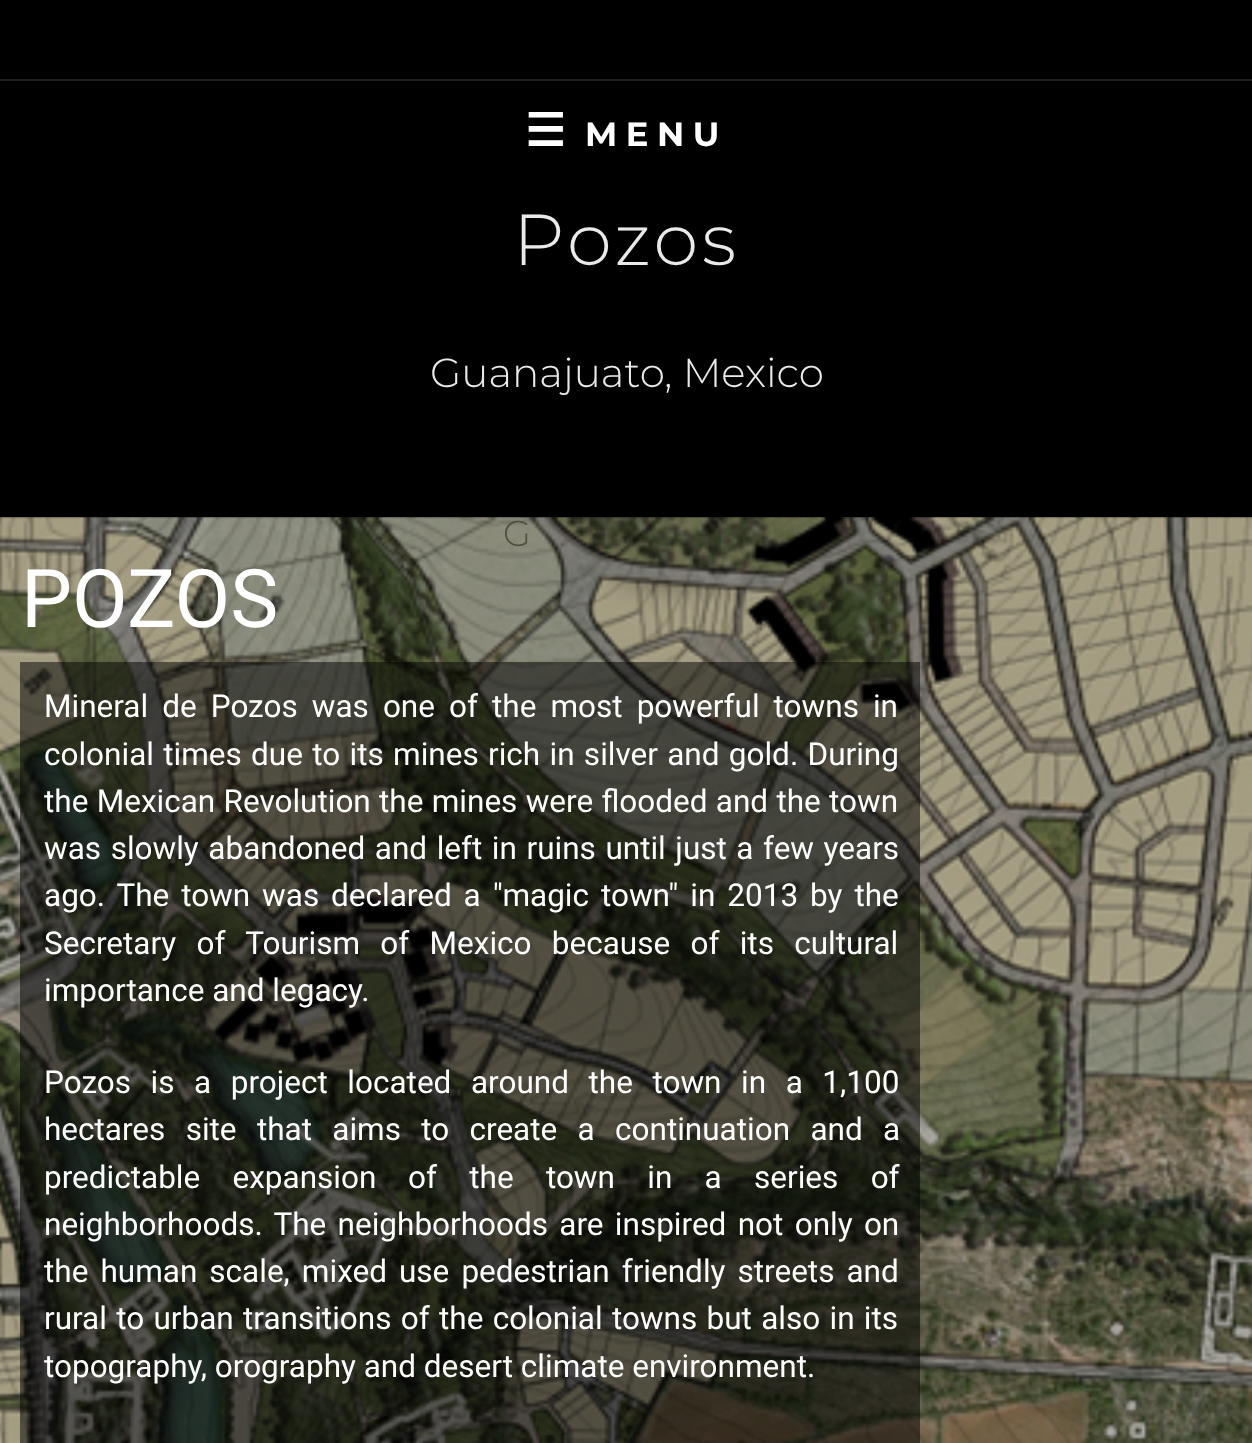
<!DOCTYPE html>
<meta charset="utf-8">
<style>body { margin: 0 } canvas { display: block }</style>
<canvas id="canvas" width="1252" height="1443"></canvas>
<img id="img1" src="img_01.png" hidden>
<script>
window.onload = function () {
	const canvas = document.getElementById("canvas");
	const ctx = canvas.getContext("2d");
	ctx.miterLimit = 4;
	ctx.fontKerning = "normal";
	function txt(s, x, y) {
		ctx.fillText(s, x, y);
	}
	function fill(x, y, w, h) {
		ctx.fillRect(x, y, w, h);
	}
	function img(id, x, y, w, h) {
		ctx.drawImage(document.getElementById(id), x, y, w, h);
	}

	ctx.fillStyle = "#000000";
	fill(0, 0, 1252, 1443);
	ctx.fillStyle = "#1F1F1F";
	fill(0, 79, 1252, 2);
	img("img1", 0, 517, 1252, 926);
	ctx.fillStyle = "rgba(0, 0, 0, 0.5)";
	fill(20, 662, 900, 375);
	fill(20, 1037, 900, 376);
	fill(20, 1413, 900, 30);
	ctx.letterSpacing = "8.5px";
	ctx.font = "bold 45px DejaVu Sans";
	ctx.fillStyle = "#FFFFFF";
	txt("☰", 525, 146);
	ctx.font = "bold 33.75px Montserrat";
	txt("MENU", 585, 146);
	ctx.letterSpacing = "3.5px";
	ctx.font = "300 72px Montserrat";
	ctx.fillStyle = "#EAEAEA";
	txt("Pozos", 513, 265);
	ctx.letterSpacing = "0px";
	ctx.font = "300 40.5px Montserrat";
	txt("Guanajuato, Mexico", 430, 387);
	ctx.font = "300 36px Montserrat";
	ctx.fillStyle = "#4F513F";
	txt("G", 503, 546);
	ctx.font = "81px Roboto";
	ctx.fillStyle = "#FFFFFF";
	txt("POZOS", 21, 627);
	ctx.wordSpacing = "6.25px";
	ctx.font = "31.5px Roboto";
	txt("Mineral de Pozos was one of the most powerful towns in", 44, 717);
	ctx.wordSpacing = "1.5px";
	txt("colonial times due to its mines rich in silver and gold. During", 44, 765);
	ctx.wordSpacing = "0.5px";
	txt("the Mexican Revolution the mines were flooded and the town", 44, 812);
	ctx.wordSpacing = "1.75px";
	txt("was slowly abandoned and left in ruins until just a few years", 44, 859);
	ctx.wordSpacing = "4.1px";
	txt("ago. The town was declared a \"magic town\" in 2013 by the", 44, 906);
	ctx.wordSpacing = "12.5px";
	txt("Secretary of Tourism of Mexico because of its cultural", 44, 954);
	ctx.wordSpacing = "0px";
	txt("importance and legacy.", 44, 1001);
	ctx.wordSpacing = "11.75px";
	txt("Pozos is a project located around the town in a 1,100", 44, 1093);
	ctx.wordSpacing = "12.5px";
	txt("hectares site that aims to create a continuation and a", 44, 1140);
	ctx.wordSpacing = "24.5px";
	txt("predictable expansion", 44, 1188);
	txt("of the town in a series of", 408, 1188);
	ctx.wordSpacing = "3.5px";
	txt("neighborhoods. The neighborhoods are inspired not only on", 44, 1235);
	ctx.wordSpacing = "4.25px";
	txt("the human scale, mixed use pedestrian friendly streets and", 44, 1282);
	ctx.wordSpacing = "1.5px";
	txt("rural to urban transitions of the colonial towns but also in its", 44, 1329);
	ctx.wordSpacing = "0px";
	txt("topography, orography and desert climate environment.", 44, 1377);
};
</script>
